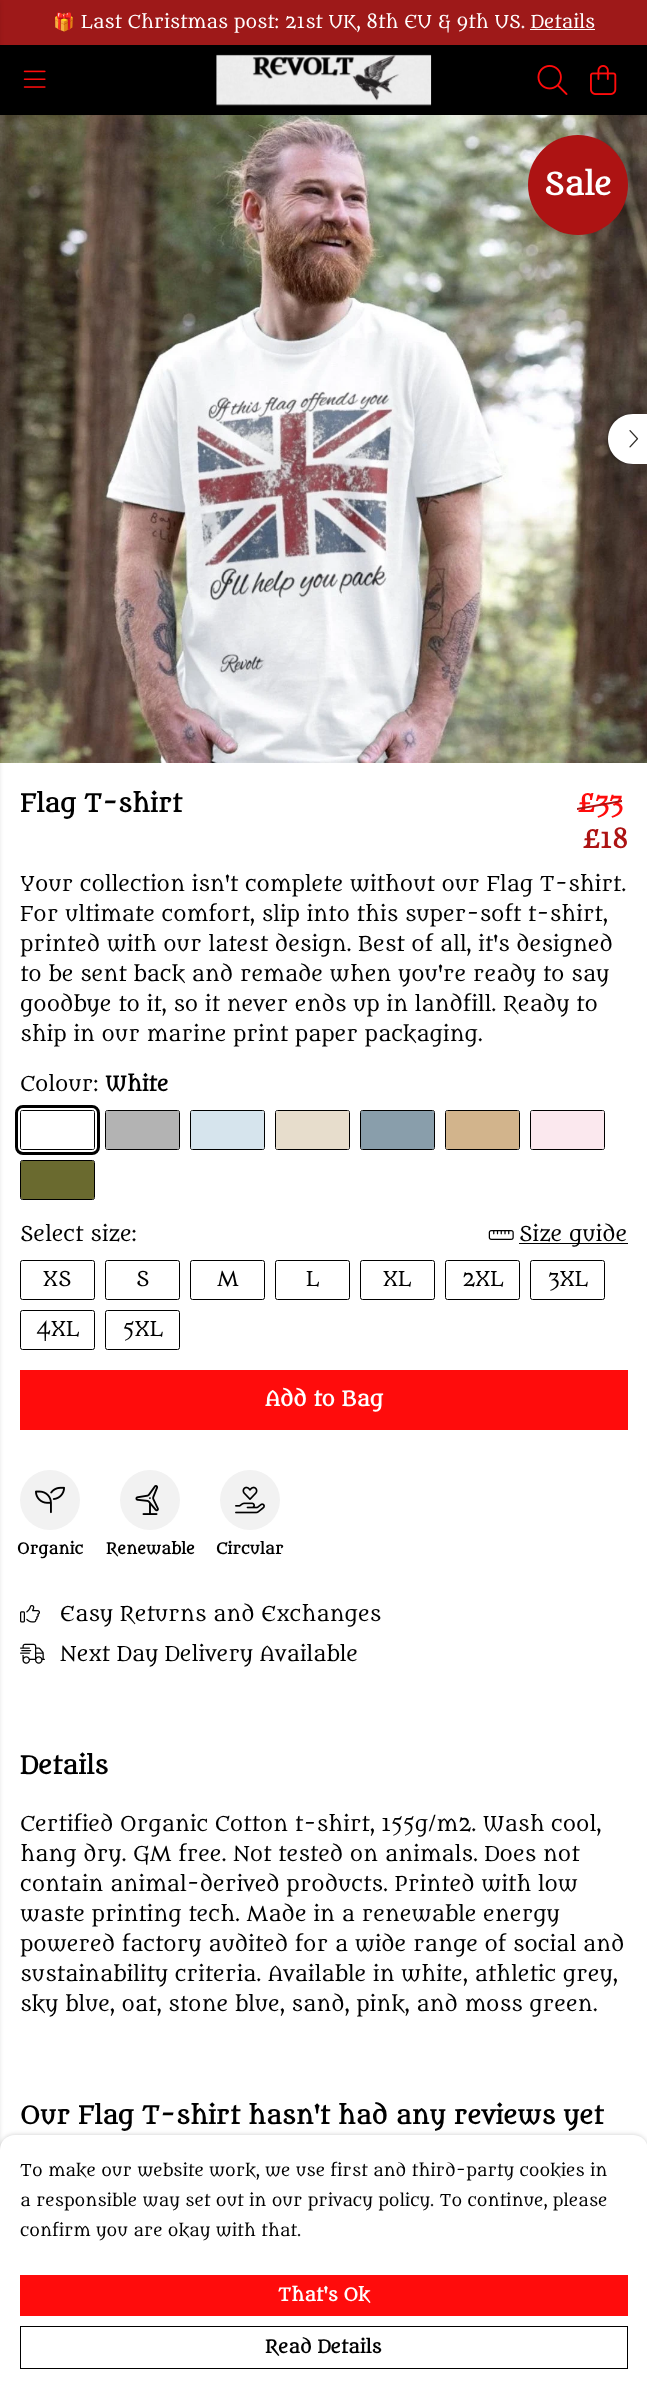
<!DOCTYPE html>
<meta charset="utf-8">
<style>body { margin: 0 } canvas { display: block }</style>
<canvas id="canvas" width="647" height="2388"></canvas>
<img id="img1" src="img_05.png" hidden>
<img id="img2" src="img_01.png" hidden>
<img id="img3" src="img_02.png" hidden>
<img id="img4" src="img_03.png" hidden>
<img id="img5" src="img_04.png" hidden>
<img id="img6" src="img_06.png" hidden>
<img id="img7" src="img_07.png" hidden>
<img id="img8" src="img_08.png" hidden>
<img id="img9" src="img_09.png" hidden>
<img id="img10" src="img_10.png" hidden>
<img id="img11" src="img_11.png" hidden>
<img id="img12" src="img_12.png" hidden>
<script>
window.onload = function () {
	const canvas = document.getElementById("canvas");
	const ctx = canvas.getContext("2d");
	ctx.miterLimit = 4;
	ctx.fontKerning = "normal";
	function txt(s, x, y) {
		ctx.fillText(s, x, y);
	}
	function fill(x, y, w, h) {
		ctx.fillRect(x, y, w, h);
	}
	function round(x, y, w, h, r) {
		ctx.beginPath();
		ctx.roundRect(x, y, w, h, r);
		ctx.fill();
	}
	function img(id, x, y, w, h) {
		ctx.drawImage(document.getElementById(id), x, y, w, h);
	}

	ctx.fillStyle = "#FFFFFF";
	fill(0, 0, 647, 2388);
	ctx.fillStyle = "#9E1919";
	fill(0, 0, 647, 45);
	ctx.fillStyle = "#000000";
	fill(0, 45, 647, 70);
	img("img1", 0, 115, 647, 648);
	ctx.fillStyle = "rgba(0, 0, 0, 0.1)";
	ctx.filter = "blur(2px)";
	ctx.beginPath();
	ctx.rect(-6, 1, 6, 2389);
	ctx.fill();
	ctx.filter = "none";
	ctx.fillStyle = "#FFFFFF";
	fill(530, 29, 65, 1);
	img("img2", 23, 70, 23, 18);
	img("img3", 216, 54, 216, 52);
	img("img4", 537, 65, 31, 30);
	img("img5", 590, 65, 27, 30);
	ctx.fillStyle = "#AD1313";
	ctx.beginPath();
	ctx.arc(578, 185, 50, 0, Math.PI * 2);
	ctx.fill();
	ctx.fillStyle = "rgba(0, 0, 0, 0.25)";
	ctx.filter = "blur(1px)";
	ctx.beginPath();
	ctx.roundRect(608, 414, 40, 50, 25);
	ctx.fill();
	ctx.filter = "none";
	ctx.fillStyle = "#FFFFFF";
	ctx.beginPath();
	ctx.moveTo(633, 414);
	ctx.lineTo(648, 414);
	ctx.lineTo(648, 464);
	ctx.lineTo(633, 464);
	ctx.bezierCurveTo(619, 464, 608, 453, 608, 439);
	ctx.bezierCurveTo(608, 425, 619, 414, 633, 414);
	ctx.closePath();
	ctx.fill();
	img("img6", 629, 430, 10, 18);
	ctx.beginPath();
	ctx.roundRect(16.5, 1106.5, 82, 47, 6.5);
	ctx.strokeStyle = "#000000";
	ctx.lineWidth = 3;
	ctx.stroke();
	ctx.beginPath();
	ctx.roundRect(20.5, 1110.5, 74, 39, 2);
	ctx.lineWidth = 1;
	ctx.stroke();
	round(21, 1111, 73, 38, 1);
	ctx.beginPath();
	ctx.roundRect(105.5, 1110.5, 74, 39, 2);
	ctx.stroke();
	ctx.fillStyle = "#B3B3B3";
	round(106, 1111, 73, 38, 1);
	ctx.beginPath();
	ctx.roundRect(190.5, 1110.5, 74, 39, 2);
	ctx.stroke();
	ctx.fillStyle = "#D6E4ED";
	round(191, 1111, 73, 38, 1);
	ctx.beginPath();
	ctx.roundRect(275.5, 1110.5, 74, 39, 2);
	ctx.stroke();
	ctx.fillStyle = "#E7DDCC";
	round(276, 1111, 73, 38, 1);
	ctx.beginPath();
	ctx.roundRect(360.5, 1110.5, 74, 39, 2);
	ctx.stroke();
	ctx.fillStyle = "#899EAB";
	round(361, 1111, 73, 38, 1);
	ctx.beginPath();
	ctx.roundRect(445.5, 1110.5, 74, 39, 2);
	ctx.stroke();
	ctx.fillStyle = "#D2B48C";
	round(446, 1111, 73, 38, 1);
	ctx.beginPath();
	ctx.roundRect(530.5, 1110.5, 74, 39, 2);
	ctx.stroke();
	ctx.fillStyle = "#FBE8EE";
	round(531, 1111, 73, 38, 1);
	ctx.beginPath();
	ctx.roundRect(20.5, 1160.5, 74, 39, 2);
	ctx.stroke();
	ctx.fillStyle = "#6A6A2F";
	round(21, 1161, 73, 38, 1);
	img("img7", 488, 1230, 26, 10);
	ctx.fillStyle = "#000000";
	fill(519, 1243, 109, 1);
	ctx.beginPath();
	ctx.roundRect(20.5, 1260.5, 74, 39, 2);
	ctx.stroke();
	ctx.beginPath();
	ctx.roundRect(105.5, 1260.5, 74, 39, 2);
	ctx.stroke();
	ctx.beginPath();
	ctx.roundRect(190.5, 1260.5, 74, 39, 2);
	ctx.stroke();
	ctx.beginPath();
	ctx.roundRect(275.5, 1260.5, 74, 39, 2);
	ctx.stroke();
	ctx.beginPath();
	ctx.roundRect(360.5, 1260.5, 74, 39, 2);
	ctx.stroke();
	ctx.beginPath();
	ctx.roundRect(445.5, 1260.5, 74, 39, 2);
	ctx.stroke();
	ctx.beginPath();
	ctx.roundRect(530.5, 1260.5, 74, 39, 2);
	ctx.stroke();
	ctx.beginPath();
	ctx.roundRect(20.5, 1310.5, 74, 39, 2);
	ctx.stroke();
	ctx.beginPath();
	ctx.roundRect(105.5, 1310.5, 74, 39, 2);
	ctx.stroke();
	ctx.fillStyle = "#FF0C0C";
	fill(20, 1370, 608, 60);
	ctx.fillStyle = "#F2F2F2";
	ctx.beginPath();
	ctx.arc(50, 1500, 30, 0, Math.PI * 2);
	ctx.fill();
	img("img8", 35, 1486, 30, 28);
	ctx.beginPath();
	ctx.arc(150, 1500, 30, 0, Math.PI * 2);
	ctx.fill();
	img("img9", 135, 1485, 24, 30);
	ctx.beginPath();
	ctx.arc(250, 1500, 30, 0, Math.PI * 2);
	ctx.fill();
	img("img10", 235, 1486, 30, 28);
	img("img11", 20, 1605, 20, 18);
	img("img12", 20, 1643, 25, 21);
	ctx.fillStyle = "rgba(0, 0, 0, 0.2)";
	ctx.filter = "blur(2.5px)";
	ctx.beginPath();
	ctx.roundRect(0, 2135, 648, 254, 15);
	ctx.fill();
	ctx.filter = "none";
	ctx.fillStyle = "#FFFFFF";
	ctx.beginPath();
	ctx.moveTo(15, 2135);
	ctx.lineTo(633, 2135);
	ctx.bezierCurveTo(641.5, 2135, 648, 2141.5, 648, 2150);
	ctx.lineTo(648, 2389);
	ctx.lineTo(0, 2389);
	ctx.lineTo(0, 2150);
	ctx.bezierCurveTo(0, 2141.5, 6.5, 2135, 15, 2135);
	ctx.closePath();
	ctx.fill();
	ctx.fillStyle = "#FF0C0C";
	fill(20, 2275, 608, 41);
	ctx.strokeRect(20.5, 2326.5, 607, 42);
	ctx.font = "17.5px Noto Color Emoji";
	ctx.fillStyle = "#FFFFFF";
	txt("🎁", 53, 28);
	ctx.font = "17.5px Metamorphous";
	txt("Last Christmas post: 21st UK, 8th EU & 9th US. Details", 81, 28);
	ctx.font = "bold 30px Metamorphous";
	txt("Sale", 544, 195);
	ctx.font = "bold 24px Metamorphous";
	ctx.fillStyle = "#000000";
	txt("Flag T-shirt", 20, 812);
	ctx.fillStyle = "#FF0C0C";
	txt("£33", 577, 812);
	ctx.fillStyle = "#AD1313";
	ctx.beginPath();
	ctx.moveTo(577, 808);
	ctx.lineTo(622, 800);
	ctx.lineTo(622, 802);
	ctx.lineTo(577, 810);
	ctx.closePath();
	ctx.fill();
	txt("£18", 582, 848);
	ctx.font = "20px Metamorphous";
	ctx.fillStyle = "#000000";
	txt("Your collection isn't complete without our Flag T-shirt.", 20, 891);
	txt("For ultimate comfort, slip into this super-soft t-shirt,", 20, 921);
	txt("printed with our latest design. Best of all, it's designed", 20, 951);
	txt("to be sent back and remade when you're ready to say", 20, 981);
	txt("goodbye to it, so it never ends up in landfill. Ready to", 20, 1011);
	txt("ship in our marine print paper packaging.", 20, 1041);
	txt("Colour:", 20, 1091);
	ctx.font = "bold 20px Metamorphous";
	txt("White", 105, 1091);
	ctx.font = "20px Metamorphous";
	txt("Select size:", 20, 1241);
	txt("Size guide", 519, 1241);
	txt("XS", 43, 1286);
	txt("S", 136, 1286);
	txt("M", 217, 1286);
	txt("L", 306, 1286);
	txt("XL", 383, 1286);
	txt("2XL", 462, 1286);
	txt("3XL", 548, 1286);
	txt("4XL", 36, 1336);
	txt("5XL", 123, 1336);
	ctx.font = "bold 20px Metamorphous";
	ctx.fillStyle = "#FFFFFF";
	txt("Add to Bag", 265, 1406);
	ctx.font = "bold 15px Metamorphous";
	ctx.fillStyle = "#000000";
	txt("Organic", 17, 1554);
	txt("Renewable", 106, 1554);
	txt("Circular", 216, 1554);
	ctx.font = "20px Metamorphous";
	txt("Easy Returns and Exchanges", 60, 1621);
	txt("Next Day Delivery Available", 60, 1661);
	ctx.font = "bold 24px Metamorphous";
	txt("Details", 20, 1774);
	ctx.font = "20px Metamorphous";
	txt("Certified Organic Cotton t-shirt, 155g/m2. Wash cool,", 20, 1831);
	txt("hang dry. GM free. Not tested on animals. Does not", 20, 1861);
	txt("contain animal-derived products. Printed with low", 20, 1891);
	txt("waste printing tech. Made in a renewable energy", 20, 1921);
	txt("powered factory audited for a wide range of social and", 20, 1951);
	txt("sustainability criteria. Available in white, athletic grey,", 20, 1981);
	txt("sky blue, oat, stone blue, sand, pink, and moss green.", 20, 2011);
	ctx.font = "bold 24px Metamorphous";
	txt("Our Flag T-shirt hasn't had any reviews yet", 20, 2124);
	ctx.font = "16px Metamorphous";
	txt("To make our website work, we use first and third-party cookies in", 20, 2176);
	txt("a responsible way set out in our privacy policy. To continue, please", 20, 2206);
	txt("confirm you are okay with that.", 20, 2236);
	ctx.font = "bold 17.5px Metamorphous";
	ctx.fillStyle = "#FFFFFF";
	txt("That's Ok", 278, 2301);
	ctx.fillStyle = "#000000";
	txt("Read Details", 265, 2353);
};
</script>
